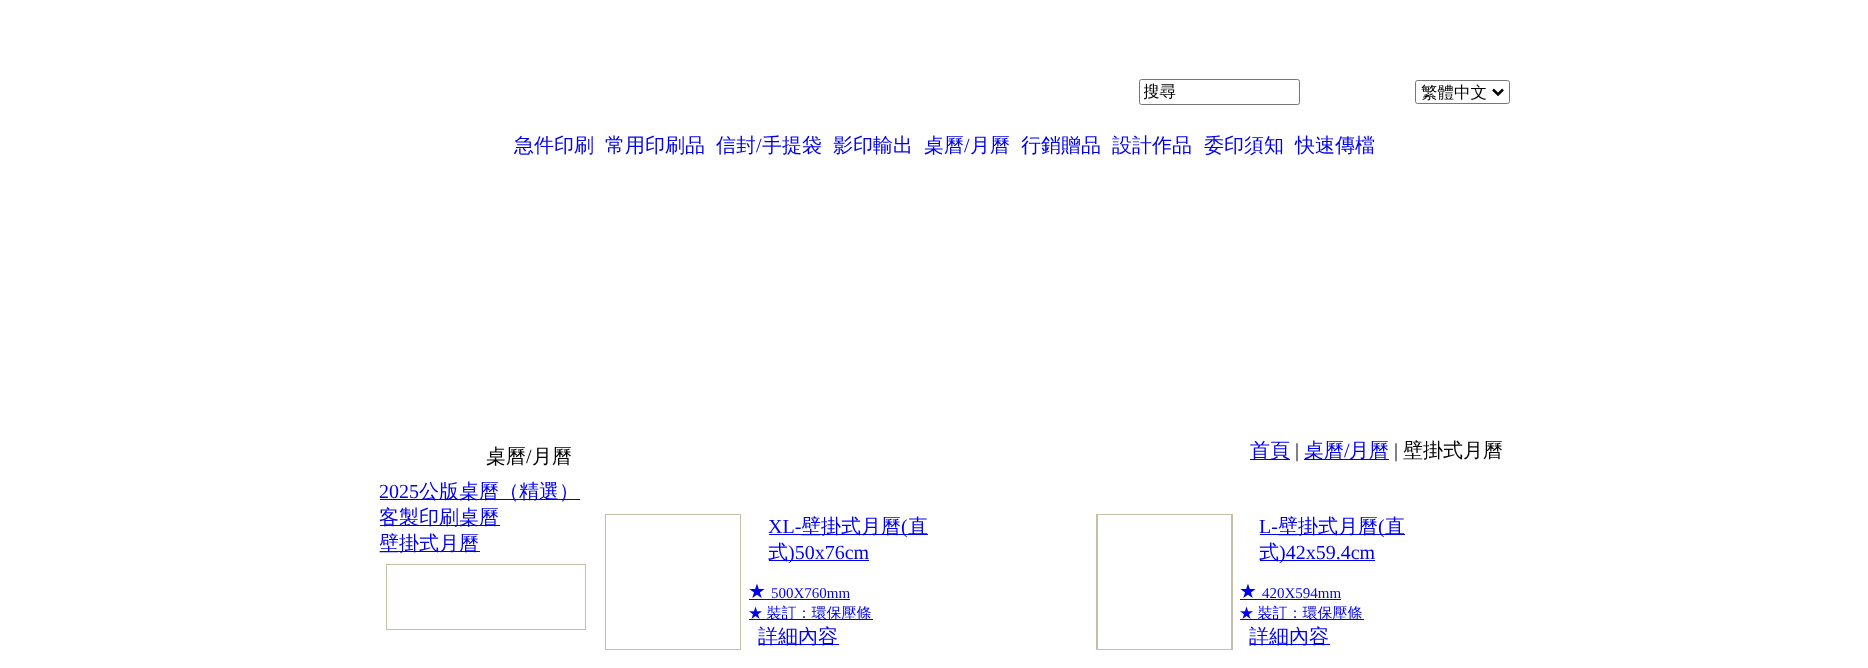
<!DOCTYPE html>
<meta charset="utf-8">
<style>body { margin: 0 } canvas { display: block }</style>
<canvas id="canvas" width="1868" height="668"></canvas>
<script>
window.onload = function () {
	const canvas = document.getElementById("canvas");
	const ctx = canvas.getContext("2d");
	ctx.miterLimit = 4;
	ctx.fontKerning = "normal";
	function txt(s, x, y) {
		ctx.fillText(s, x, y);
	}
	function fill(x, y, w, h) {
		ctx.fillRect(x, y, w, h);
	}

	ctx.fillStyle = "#FFFFFF";
	fill(0, 0, 1868, 668);
	ctx.beginPath();
	ctx.roundRect(1139.5, 79.5, 160, 25, 2);
	ctx.strokeStyle = "#767676";
	ctx.stroke();
	ctx.beginPath();
	ctx.roundRect(1415.5, 80.5, 94, 23, 2);
	ctx.stroke();
	ctx.beginPath();
	ctx.moveTo(1493, 89.5);
	ctx.lineTo(1498, 94.5);
	ctx.lineTo(1503, 89.5);
	ctx.strokeStyle = "#000000";
	ctx.lineWidth = 2.5;
	ctx.stroke();
	ctx.fillStyle = "#0000EE";
	fill(1250, 459, 40, 1);
	fill(1304, 459, 85, 1);
	fill(380, 499, 200, 1);
	fill(380, 525, 120, 1);
	fill(380, 551, 100, 1);
	ctx.strokeStyle = "#C5BFA7";
	ctx.lineWidth = 1;
	ctx.strokeRect(386.5, 564.5, 199, 65);
	ctx.fillStyle = "#C5BFA7";
	fill(605, 514, 136, 136);
	ctx.fillStyle = "#FFFFFF";
	fill(606, 515, 134, 134);
	ctx.fillStyle = "#0000EE";
	fill(769, 534, 159, 1);
	fill(769, 560, 100, 1);
	fill(749, 599, 101, 1);
	fill(749, 619, 124, 1);
	fill(759, 644, 80, 1);
	ctx.fillStyle = "#C5BFA7";
	fill(1096, 514, 137, 136);
	ctx.fillStyle = "#FFFFFF";
	fill(1098, 515, 133, 134);
	ctx.fillStyle = "#0000EE";
	fill(1260, 534, 145, 1);
	fill(1260, 560, 115, 1);
	fill(1240, 599, 101, 1);
	fill(1240, 619, 124, 1);
	fill(1250, 644, 80, 1);
	ctx.save();
	ctx.beginPath();
	ctx.rect(1144, 81, 151, 22);
	ctx.clip();
	ctx.font = "500 16.5px WenQuanYi Zen Hei";
	ctx.fillStyle = "#000000";
	txt("搜尋", 1143, 97);
	ctx.restore();
	ctx.font = "500 16.5px WenQuanYi Zen Hei";
	ctx.fillStyle = "#000000";
	txt("繁體中文", 1421, 98);
	ctx.font = "500 20px WenQuanYi Zen Hei";
	ctx.fillStyle = "#0000EE";
	txt("急件印刷", 514, 152);
	txt("常用印刷品", 605, 152);
	txt("信封", 716, 152);
	ctx.font = "20px Liberation Serif";
	txt("/", 756, 152);
	ctx.font = "500 20px WenQuanYi Zen Hei";
	txt("手提袋", 762, 152);
	txt("影印輸出", 833, 152);
	txt("桌曆", 924, 152);
	ctx.font = "20px Liberation Serif";
	txt("/", 964, 152);
	ctx.font = "500 20px WenQuanYi Zen Hei";
	txt("月曆", 970, 152);
	txt("行銷贈品", 1021, 152);
	txt("設計作品", 1112, 152);
	txt("委印須知", 1204, 152);
	txt("快速傳檔", 1295, 152);
	ctx.fillStyle = "#000000";
	txt("桌曆", 486, 463);
	ctx.font = "20px Liberation Serif";
	txt("/", 526, 463);
	ctx.font = "500 20px WenQuanYi Zen Hei";
	txt("月曆", 532, 463);
	ctx.fillStyle = "#0000EE";
	txt("首頁", 1250, 457);
	ctx.font = "20px Liberation Serif";
	ctx.fillStyle = "#000000";
	txt("|", 1295, 457);
	ctx.font = "500 20px WenQuanYi Zen Hei";
	ctx.fillStyle = "#0000EE";
	txt("桌曆", 1304, 457);
	ctx.font = "20px Liberation Serif";
	txt("/", 1344, 457);
	ctx.font = "500 20px WenQuanYi Zen Hei";
	txt("月曆", 1349, 457);
	ctx.font = "20px Liberation Serif";
	ctx.fillStyle = "#000000";
	txt("|", 1394, 457);
	ctx.font = "500 20px WenQuanYi Zen Hei";
	txt("壁掛式月曆", 1403, 457);
	ctx.font = "20px Liberation Serif";
	ctx.fillStyle = "#0000EE";
	txt("2025", 379, 498);
	ctx.font = "500 20px WenQuanYi Zen Hei";
	txt("公版桌曆（精選）", 419, 498);
	txt("客製印刷桌曆", 379, 524);
	txt("壁掛式月曆", 379, 550);
	ctx.font = "20px Liberation Serif";
	txt("XL-", 768, 533);
	ctx.font = "500 20px WenQuanYi Zen Hei";
	txt("壁掛式月曆", 801, 533);
	ctx.font = "20px Liberation Serif";
	txt("(", 901, 533);
	ctx.font = "500 20px WenQuanYi Zen Hei";
	txt("直", 908, 533);
	txt("式", 768, 559);
	ctx.font = "20px Liberation Serif";
	txt(")50x76cm", 788, 559);
	ctx.font = "20px DejaVu Sans";
	txt("★", 748, 598);
	ctx.font = "15px Liberation Serif";
	txt("500X760mm", 771, 598);
	ctx.wordSpacing = "-1px";
	ctx.font = "500 15px WenQuanYi Zen Hei";
	txt("★ 裝訂：環保壓條", 748, 618);
	ctx.wordSpacing = "0px";
	ctx.font = "500 20px WenQuanYi Zen Hei";
	txt("詳細內容", 758, 643);
	ctx.font = "20px Liberation Serif";
	txt("L-", 1259, 533);
	ctx.font = "500 20px WenQuanYi Zen Hei";
	txt("壁掛式月曆", 1278, 533);
	ctx.font = "20px Liberation Serif";
	txt("(", 1378, 533);
	ctx.font = "500 20px WenQuanYi Zen Hei";
	txt("直", 1385, 533);
	txt("式", 1259, 559);
	ctx.font = "20px Liberation Serif";
	txt(")42x59.4cm", 1279, 559);
	ctx.font = "20px DejaVu Sans";
	txt("★", 1239, 598);
	ctx.font = "15px Liberation Serif";
	txt("420X594mm", 1262, 598);
	ctx.wordSpacing = "-1px";
	ctx.font = "500 15px WenQuanYi Zen Hei";
	txt("★ 裝訂：環保壓條", 1239, 618);
	ctx.wordSpacing = "0px";
	ctx.font = "500 20px WenQuanYi Zen Hei";
	txt("詳細內容", 1249, 643);
};
</script>
